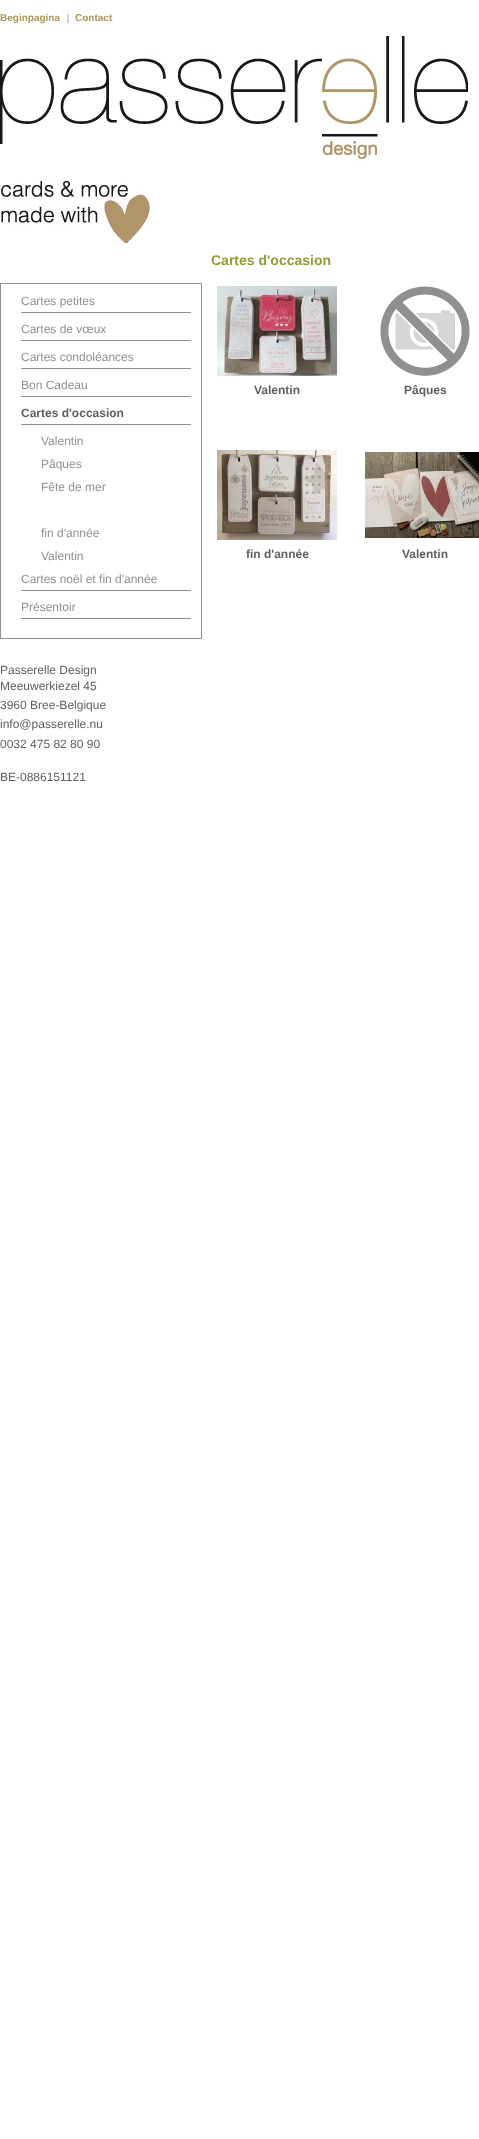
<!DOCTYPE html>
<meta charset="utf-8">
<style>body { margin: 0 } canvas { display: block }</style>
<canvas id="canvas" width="479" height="2139"></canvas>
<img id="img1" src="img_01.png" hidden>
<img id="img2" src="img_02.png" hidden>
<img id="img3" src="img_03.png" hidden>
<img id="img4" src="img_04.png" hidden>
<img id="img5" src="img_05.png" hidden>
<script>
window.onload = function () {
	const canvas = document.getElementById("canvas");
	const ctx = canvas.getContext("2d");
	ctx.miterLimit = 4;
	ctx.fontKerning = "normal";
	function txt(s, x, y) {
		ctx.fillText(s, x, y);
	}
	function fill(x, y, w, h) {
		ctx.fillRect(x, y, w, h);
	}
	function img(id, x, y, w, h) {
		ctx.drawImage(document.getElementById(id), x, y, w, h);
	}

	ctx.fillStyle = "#FFFFFF";
	fill(0, 0, 479, 2139);
	img("img1", 0, 36, 468, 207);
	ctx.strokeStyle = "#909090";
	ctx.strokeRect(0.5, 283.5, 201, 355);
	ctx.fillStyle = "#909090";
	fill(21, 312, 170, 1);
	fill(21, 340, 170, 1);
	fill(21, 368, 170, 1);
	fill(21, 396, 170, 1);
	fill(21, 424, 170, 1);
	fill(21, 590, 170, 1);
	fill(21, 618, 170, 1);
	img("img2", 217, 286, 120, 90);
	img("img3", 380, 286, 90, 90);
	img("img4", 217, 450, 120, 90);
	img("img5", 365, 452, 114, 86);
	ctx.font = "bold 10px Liberation Sans";
	ctx.fillStyle = "#AF9659";
	txt("Beginpagina", 0, 21);
	ctx.font = "10px Liberation Serif";
	ctx.fillStyle = "#606060";
	txt("|", 67, 21);
	ctx.font = "bold 10px Liberation Sans";
	ctx.fillStyle = "#AF9659";
	txt("Contact", 75, 21);
	ctx.font = "12px Liberation Sans";
	ctx.fillStyle = "#909090";
	txt("Cartes petites", 21, 305);
	txt("Cartes de vœux", 21, 333);
	txt("Cartes condoléances", 21, 361);
	txt("Bon Cadeau", 21, 389);
	ctx.font = "bold 12px Liberation Sans";
	ctx.fillStyle = "#606060";
	txt("Cartes d'occasion", 21, 417);
	ctx.font = "12px Liberation Sans";
	ctx.fillStyle = "#909090";
	txt("Valentin", 41, 445);
	txt("Pâques", 41, 468);
	txt("Fête de mer", 41, 491);
	txt("fin d'année", 41, 537);
	txt("Valentin", 41, 560);
	txt("Cartes noël et fin d'année", 21, 583);
	txt("Présentoir", 21, 611);
	ctx.font = "bold 14px Liberation Sans";
	ctx.fillStyle = "#939C33";
	txt("Cartes d'occasion", 211, 265);
	ctx.font = "bold 12px Liberation Sans";
	ctx.fillStyle = "#606060";
	txt("Valentin", 254, 394);
	txt("Pâques", 404, 394);
	txt("fin d'année", 246, 558);
	txt("Valentin", 402, 558);
	ctx.font = "12px Liberation Sans";
	txt("Passerelle Design", 0, 674);
	txt("Meeuwerkiezel 45", 0, 690);
	txt("3960 Bree-Belgique", 0, 709);
	txt("info@passerelle.nu", 0, 728);
	txt("0032 475 82 80 90", 0, 748);
	txt("BE-0886151121", 0, 781);
};
</script>
